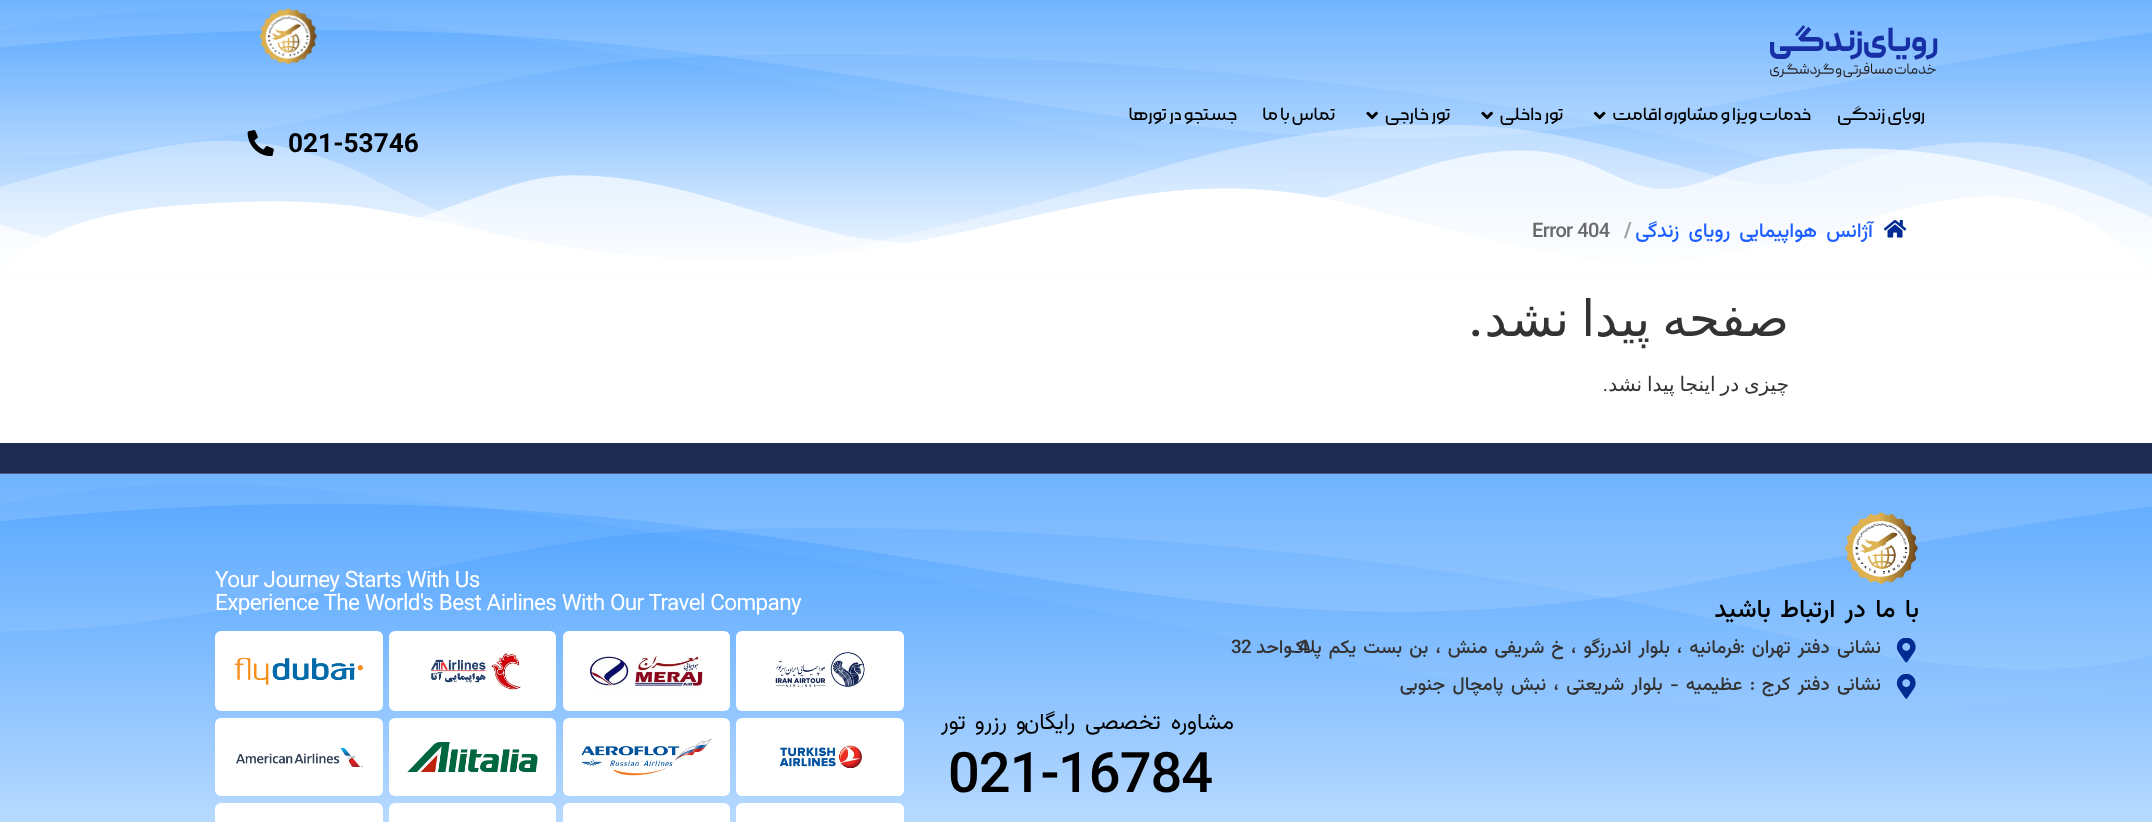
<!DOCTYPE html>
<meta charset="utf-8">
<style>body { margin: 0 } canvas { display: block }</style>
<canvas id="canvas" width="2152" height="822"></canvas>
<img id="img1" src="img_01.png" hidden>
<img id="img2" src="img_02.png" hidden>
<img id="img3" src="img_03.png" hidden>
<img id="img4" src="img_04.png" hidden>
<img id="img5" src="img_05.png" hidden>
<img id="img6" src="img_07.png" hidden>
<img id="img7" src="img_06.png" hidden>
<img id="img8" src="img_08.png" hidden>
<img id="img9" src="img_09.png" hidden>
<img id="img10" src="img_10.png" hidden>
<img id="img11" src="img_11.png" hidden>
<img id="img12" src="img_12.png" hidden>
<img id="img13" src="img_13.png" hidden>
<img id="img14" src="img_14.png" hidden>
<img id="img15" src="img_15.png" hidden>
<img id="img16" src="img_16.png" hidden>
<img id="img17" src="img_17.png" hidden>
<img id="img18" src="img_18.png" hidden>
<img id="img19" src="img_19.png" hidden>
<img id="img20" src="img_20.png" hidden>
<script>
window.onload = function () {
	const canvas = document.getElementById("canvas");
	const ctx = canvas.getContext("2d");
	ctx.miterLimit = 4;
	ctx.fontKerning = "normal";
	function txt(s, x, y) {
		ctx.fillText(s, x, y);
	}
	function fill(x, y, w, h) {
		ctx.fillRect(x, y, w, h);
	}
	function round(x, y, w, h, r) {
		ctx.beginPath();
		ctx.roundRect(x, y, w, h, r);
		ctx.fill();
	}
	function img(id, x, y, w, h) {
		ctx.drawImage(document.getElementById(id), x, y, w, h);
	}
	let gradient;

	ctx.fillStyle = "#FFFFFF";
	fill(0, 0, 2152, 822);
	gradient = ctx.createLinearGradient(1076, 280, 1076, 0);
	gradient.addColorStop(0, "#FFFFFF");
	gradient.addColorStop(1, "#449DFF");
	ctx.fillStyle = gradient;
	fill(0, 0, 2152, 276);
	img("img1", 0, 0, 2152, 196);
	img("img2", 1770, 25, 168, 53);
	img("img3", 1593, 111, 13, 9);
	img("img4", 1481, 111, 12, 9);
	img("img4", 1366, 111, 12, 9);
	img("img5", 259, 8, 58, 57);
	img("img6", 0, 125, 2152, 148);
	img("img7", 247, 130, 27, 26);
	img("img8", 1883, 220, 24, 18);
	gradient = ctx.createLinearGradient(1076, 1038, 1076, 474);
	gradient.addColorStop(0, "#FFFFFF");
	gradient.addColorStop(1, "#449DFF");
	ctx.fillStyle = gradient;
	fill(0, 474, 2152, 348);
	ctx.fillStyle = "#1F2C51";
	fill(0, 443, 2152, 31);
	img("img9", 0, 473, 2152, 235);
	ctx.fillStyle = "#FFFFFF";
	round(736, 631, 168, 80, 6);
	img("img10", 775, 652, 90, 36);
	round(563, 631, 167, 80, 6);
	img("img11", 589, 656, 115, 36);
	round(389, 631, 167, 80, 6);
	img("img12", 430, 652, 92, 38);
	round(215, 631, 168, 80, 6);
	img("img13", 234, 657, 129, 28);
	round(736, 718, 168, 78, 6);
	img("img14", 779, 745, 83, 24);
	round(563, 718, 167, 78, 6);
	img("img15", 581, 738, 131, 38);
	round(389, 718, 167, 78, 6);
	img("img16", 407, 742, 131, 30);
	round(215, 718, 168, 78, 6);
	img("img17", 236, 748, 127, 19);
	round(736, 803, 168, 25, 6);
	round(563, 803, 167, 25, 6);
	round(389, 803, 167, 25, 6);
	round(215, 803, 168, 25, 6);
	img("img18", 1845, 512, 73, 72);
	img("img19", 1896, 638, 20, 25);
	img("img20", 1896, 674, 20, 25);
	ctx.direction = "rtl";
	ctx.font = "20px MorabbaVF";
	ctx.fillStyle = "#000000";
	txt("رویای زندگی", 1925, 120);
	txt("خدمات ویزا و مشاوره اقامت", 1811, 120);
	txt("تور داخلی", 1563, 120);
	txt("تور خارجی", 1450, 120);
	txt("تماس با ما", 1335, 120);
	txt("جستجو در تورها", 1237, 120);
	ctx.direction = "ltr";
	ctx.font = "bold 26.25px Roboto";
	txt("021-53746", 288, 152);
	ctx.letterSpacing = "-0.62px";
	ctx.wordSpacing = "4.5px";
	ctx.direction = "rtl";
	ctx.font = "500 20px Vazirmatn";
	ctx.fillStyle = "#1E60FF";
	txt("آژانس هواپیمایی رویای زندگی", 1873, 237);
	ctx.wordSpacing = "0px";
	ctx.direction = "ltr";
	ctx.font = "bold 21px Vazirmatn";
	ctx.fillStyle = "#A1A1A1";
	txt("/", 1624, 237);
	ctx.font = "500 20px Vazirmatn";
	ctx.fillStyle = "#696969";
	txt("Error 404", 1532, 237);
	ctx.letterSpacing = "0px";
	ctx.wordSpacing = "-4px";
	ctx.direction = "rtl";
	ctx.font = "50px DejaVu Sans";
	ctx.fillStyle = "#333333";
	txt("صفحه پیدا نشد", 1789, 336);
	ctx.wordSpacing = "0px";
	ctx.font = "500 50px Roboto";
	txt(".", 1483, 336);
	ctx.wordSpacing = "-1.5px";
	ctx.font = "20px DejaVu Sans";
	txt("چیزی در اینجا پیدا نشد", 1789, 391);
	ctx.wordSpacing = "0px";
	ctx.font = "20px Roboto";
	txt(".", 1608, 391);
	ctx.letterSpacing = "-0.62px";
	ctx.direction = "ltr";
	ctx.font = "22.5px Vazirmatn";
	ctx.fillStyle = "#FFFFFF";
	txt("Your Journey Starts With Us", 215, 587);
	txt("Experience The World's Best Airlines With Our Travel Company", 215, 610);
	ctx.wordSpacing = "3.5px";
	ctx.direction = "rtl";
	ctx.font = "500 25px Vazirmatn";
	ctx.fillStyle = "#000000";
	txt("با ما در ارتباط باشید", 1919, 617);
	ctx.wordSpacing = "3px";
	ctx.font = "500 18.75px Vazirmatn";
	ctx.fillStyle = "#333333";
	txt("نشانی دفتر تهران :", 1881, 653);
	ctx.wordSpacing = "2.75px";
	txt("فرمانیه ، بلوار اندرزگو ، خ شریفی منش ، بن بست یکم پلاک", 1741, 653);
	ctx.wordSpacing = "0px";
	ctx.direction = "ltr";
	txt("4", 1298, 653);
	ctx.direction = "rtl";
	txt("واحد", 1292, 653);
	ctx.direction = "ltr";
	txt("32", 1231, 653);
	ctx.wordSpacing = "3.1px";
	ctx.direction = "rtl";
	txt("نشانی دفتر کرج : عظیمیه - بلوار شریعتی ، نبش پامچال جنوبی", 1881, 690);
	ctx.wordSpacing = "4px";
	ctx.font = "22.5px Vazirmatn";
	ctx.fillStyle = "#000000";
	txt("مشاوره تخصصی رایگان", 1234, 729);
	ctx.wordSpacing = "3.1px";
	txt("و رزرو تور", 1026, 729);
	ctx.letterSpacing = "-1px";
	ctx.wordSpacing = "0px";
	ctx.direction = "ltr";
	ctx.font = "500 56px Roboto";
	txt("16784", 1058, 792);
	txt("021-", 948, 792);
};
</script>
